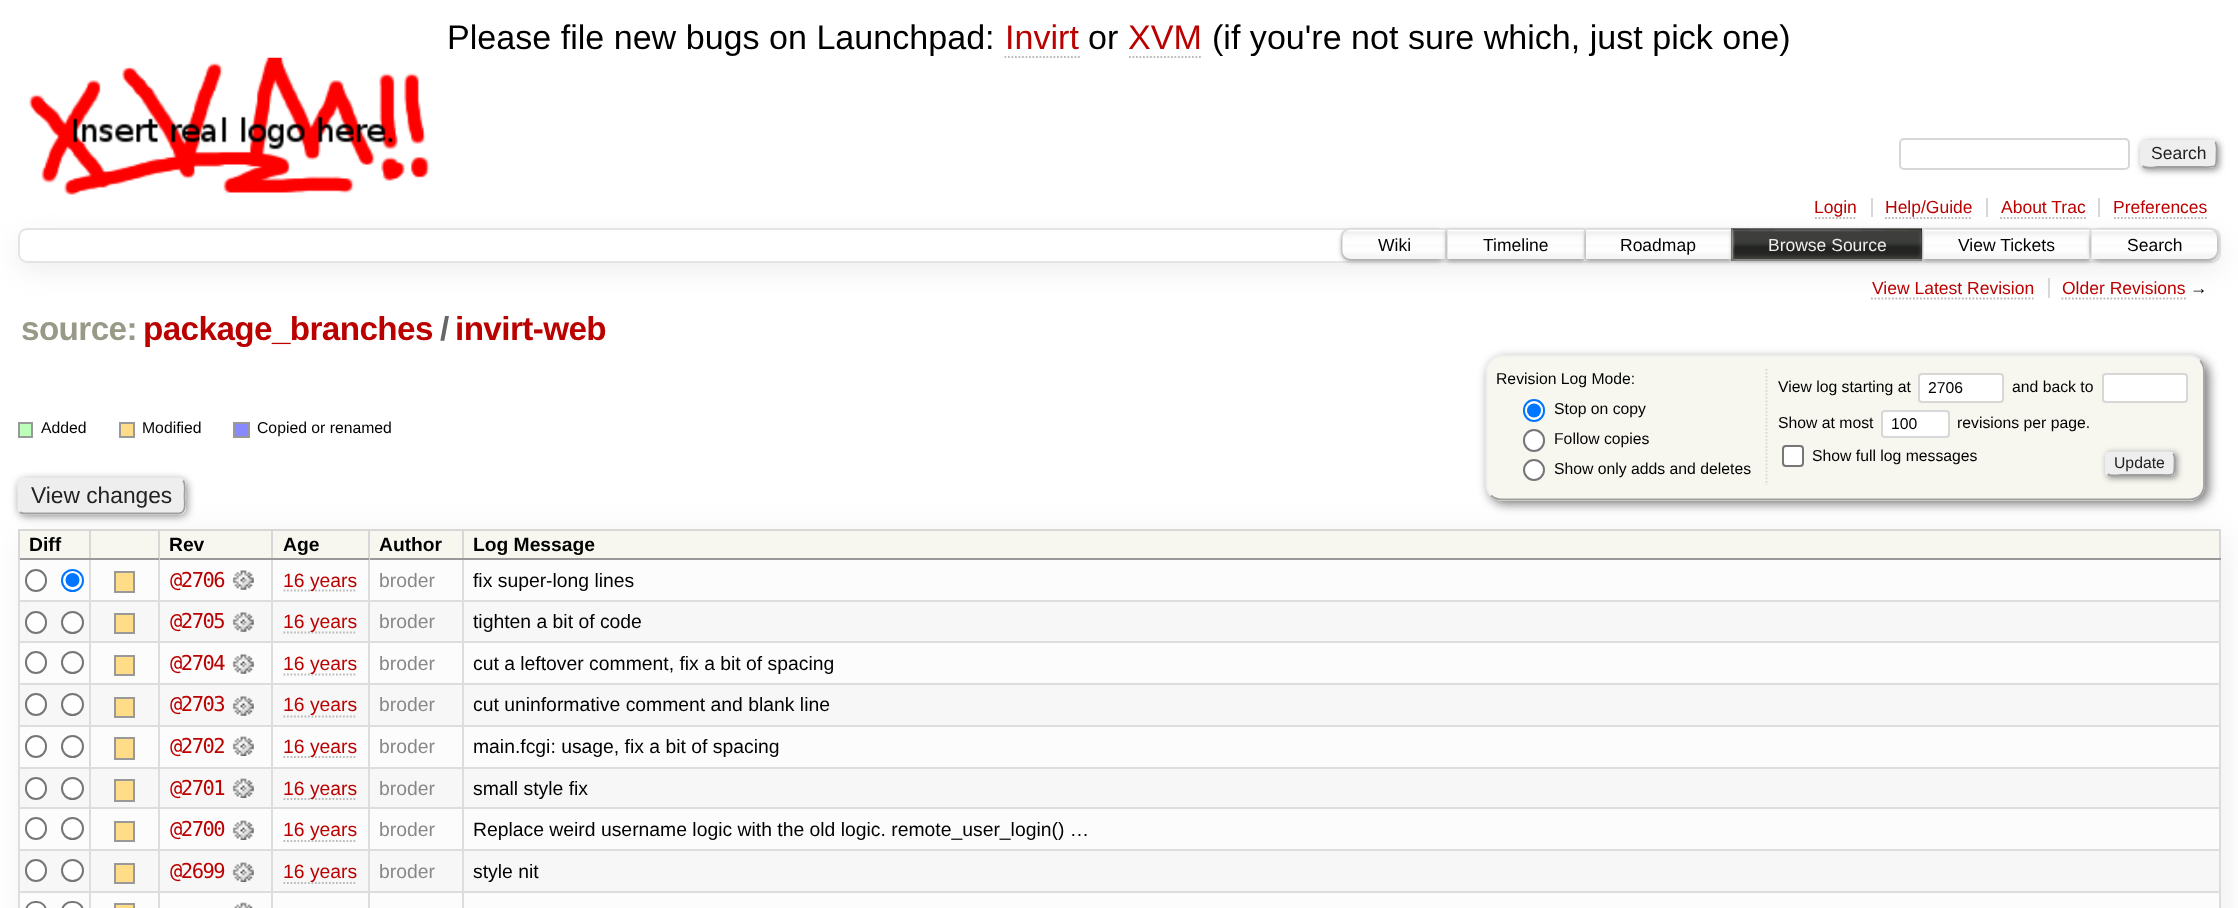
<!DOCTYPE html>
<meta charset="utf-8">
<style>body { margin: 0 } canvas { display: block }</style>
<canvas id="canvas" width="2238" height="908"></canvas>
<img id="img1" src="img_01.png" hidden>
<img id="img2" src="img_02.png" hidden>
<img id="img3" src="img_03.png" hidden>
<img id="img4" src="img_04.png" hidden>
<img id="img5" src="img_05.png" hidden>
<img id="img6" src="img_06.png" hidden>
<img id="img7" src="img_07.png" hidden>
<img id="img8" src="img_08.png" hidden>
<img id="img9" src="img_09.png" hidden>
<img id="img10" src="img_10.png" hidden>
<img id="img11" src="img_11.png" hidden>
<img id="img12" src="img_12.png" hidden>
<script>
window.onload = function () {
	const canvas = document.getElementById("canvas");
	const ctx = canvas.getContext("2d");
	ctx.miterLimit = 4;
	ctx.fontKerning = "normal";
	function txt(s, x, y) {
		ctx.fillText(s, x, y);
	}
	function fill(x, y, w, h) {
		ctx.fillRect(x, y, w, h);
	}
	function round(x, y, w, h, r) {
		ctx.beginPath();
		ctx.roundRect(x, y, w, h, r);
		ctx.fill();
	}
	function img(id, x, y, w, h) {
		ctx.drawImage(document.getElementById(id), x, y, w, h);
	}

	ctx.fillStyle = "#FFFFFF";
	fill(0, 0, 2238, 908);
	ctx.beginPath();
	ctx.moveTo(1004.5, 57);
	ctx.lineTo(1080, 57);
	ctx.strokeStyle = "#BBBBBB";
	ctx.lineWidth = 1.8;
	ctx.setLineDash([1.75, 1.75]);
	ctx.stroke();
	ctx.beginPath();
	ctx.moveTo(1129, 57);
	ctx.lineTo(1202, 57);
	ctx.stroke();
	img("img1", 29, 57, 401, 138);
	ctx.beginPath();
	ctx.roundRect(1900, 139, 229, 30, 4);
	ctx.strokeStyle = "#D7D7D7";
	ctx.lineWidth = 2;
	ctx.setLineDash([]);
	ctx.stroke();
	ctx.fillStyle = "#888888";
	ctx.filter = "blur(3.5px)";
	ctx.beginPath();
	ctx.roundRect(2142, 142, 77, 28, 5);
	ctx.fill();
	ctx.filter = "none";
	ctx.fillStyle = "#EEEEEE";
	round(2140, 140, 77, 28, 5);
	ctx.beginPath();
	ctx.moveTo(2215, 142);
	ctx.bezierCurveTo(2217.5, 144.5, 2216.5, 151, 2216.5, 154);
	ctx.bezierCurveTo(2216.5, 169, 2217, 167, 2201, 167);
	ctx.lineTo(2156.5, 167);
	ctx.bezierCurveTo(2156, 167, 2145.5, 169, 2142.5, 166);
	ctx.strokeStyle = "#9F9F9F";
	ctx.lineWidth = 1.8;
	ctx.stroke();
	ctx.beginPath();
	ctx.moveTo(2142.5, 166);
	ctx.bezierCurveTo(2140, 163.5, 2141, 157, 2141, 154);
	ctx.bezierCurveTo(2141, 139, 2140.5, 141, 2156.5, 141);
	ctx.lineTo(2201, 141);
	ctx.bezierCurveTo(2201.5, 141, 2212, 139, 2215, 142);
	ctx.strokeStyle = "#EEEEEE";
	ctx.stroke();
	ctx.save();
	ctx.beginPath();
	ctx.moveTo(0, 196);
	ctx.lineTo(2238, 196);
	ctx.lineTo(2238, 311);
	ctx.lineTo(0, 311);
	ctx.closePath();
	ctx.moveTo(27, 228);
	ctx.lineTo(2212, 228);
	ctx.bezierCurveTo(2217, 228, 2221, 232, 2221, 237);
	ctx.lineTo(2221, 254);
	ctx.bezierCurveTo(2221, 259, 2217, 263, 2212, 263);
	ctx.lineTo(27, 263);
	ctx.bezierCurveTo(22, 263, 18, 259, 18, 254);
	ctx.lineTo(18, 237);
	ctx.bezierCurveTo(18, 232, 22, 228, 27, 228);
	ctx.closePath();
	ctx.clip("evenodd");
	ctx.filter = "blur(13px)";
	ctx.beginPath();
	ctx.roundRect(18, 236, 2203, 35, 9);
	ctx.fill();
	ctx.filter = "none";
	ctx.restore();
	ctx.fillStyle = "#D7D7D7";
	fill(1871, 198, 2, 19);
	ctx.beginPath();
	ctx.moveTo(1815, 218);
	ctx.lineTo(1857, 218);
	ctx.strokeStyle = "#BBBBBB";
	ctx.setLineDash([1.75, 1.75]);
	ctx.stroke();
	fill(1986, 198, 2, 19);
	ctx.beginPath();
	ctx.moveTo(1885, 218);
	ctx.lineTo(1972, 218);
	ctx.stroke();
	fill(2098, 198, 2, 19);
	ctx.beginPath();
	ctx.moveTo(2000, 218);
	ctx.lineTo(2086, 218);
	ctx.stroke();
	ctx.beginPath();
	ctx.moveTo(2114, 218);
	ctx.lineTo(2208.5, 218);
	ctx.stroke();
	ctx.beginPath();
	ctx.roundRect(19, 229, 2201, 33, 8);
	ctx.strokeStyle = "#E4E4E4";
	ctx.lineWidth = 2;
	ctx.setLineDash([]);
	ctx.stroke();
	ctx.fillStyle = "#FFFFFF";
	ctx.beginPath();
	ctx.roundRect(1341, 228, 106, 33, [9, 0, 0, 9]);
	ctx.fill();
	img("img2", 1341, 231, 104, 29);
	ctx.beginPath();
	ctx.roundRect(1342, 229, 104, 31, [8, 0, 0, 8]);
	ctx.stroke();
	ctx.save();
	ctx.beginPath();
	ctx.moveTo(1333, 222);
	ctx.lineTo(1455, 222);
	ctx.lineTo(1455, 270);
	ctx.lineTo(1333, 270);
	ctx.closePath();
	ctx.moveTo(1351, 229);
	ctx.lineTo(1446, 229);
	ctx.lineTo(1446, 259);
	ctx.lineTo(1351, 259);
	ctx.bezierCurveTo(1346, 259, 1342, 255, 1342, 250);
	ctx.lineTo(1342, 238);
	ctx.bezierCurveTo(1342, 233, 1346, 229, 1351, 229);
	ctx.closePath();
	ctx.clip("evenodd");
	ctx.fillStyle = "#999999";
	ctx.filter = "blur(2.5px)";
	ctx.beginPath();
	ctx.roundRect(1342, 231, 104, 30, 9);
	ctx.fill();
	ctx.filter = "none";
	ctx.restore();
	fill(1448, 233, 3, 26);
	img("img3", 1445, 231, 139, 28);
	ctx.strokeRect(1447, 229, 138, 31);
	ctx.save();
	ctx.beginPath();
	ctx.moveTo(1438, 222);
	ctx.lineTo(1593, 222);
	ctx.lineTo(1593, 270);
	ctx.lineTo(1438, 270);
	ctx.closePath();
	ctx.moveTo(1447, 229);
	ctx.lineTo(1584, 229);
	ctx.lineTo(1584, 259);
	ctx.lineTo(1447, 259);
	ctx.closePath();
	ctx.clip("evenodd");
	ctx.fillStyle = "#999999";
	ctx.filter = "blur(2.5px)";
	ctx.beginPath();
	ctx.rect(1447, 231, 137, 30);
	ctx.fill();
	ctx.filter = "none";
	ctx.restore();
	fill(1586, 230, 3, 29);
	img("img4", 1586, 231, 145, 28);
	ctx.strokeRect(1585, 229, 147, 31);
	ctx.save();
	ctx.beginPath();
	ctx.moveTo(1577, 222);
	ctx.lineTo(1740, 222);
	ctx.lineTo(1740, 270);
	ctx.lineTo(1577, 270);
	ctx.closePath();
	ctx.moveTo(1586, 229);
	ctx.lineTo(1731, 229);
	ctx.lineTo(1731, 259);
	ctx.lineTo(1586, 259);
	ctx.closePath();
	ctx.clip("evenodd");
	ctx.fillStyle = "#999999";
	ctx.filter = "blur(2.5px)";
	ctx.beginPath();
	ctx.rect(1586, 231, 145, 30);
	ctx.fill();
	ctx.filter = "none";
	ctx.restore();
	ctx.strokeStyle = "#666666";
	ctx.strokeRect(1732, 229, 190, 31);
	ctx.fillStyle = "#999999";
	ctx.filter = "blur(2.5px)";
	ctx.beginPath();
	ctx.rect(1733, 231, 189, 30);
	ctx.fill();
	ctx.filter = "none";
	ctx.fillStyle = "#000000";
	fill(1733, 229, 189, 30);
	img("img5", 1732, 229, 190, 30);
	ctx.fillStyle = "#FFFFFF";
	fill(1924, 230, 3, 29);
	img("img6", 1921, 231, 168, 28);
	ctx.strokeStyle = "#E4E4E4";
	ctx.strokeRect(1923, 229, 167, 31);
	ctx.save();
	ctx.beginPath();
	ctx.moveTo(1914, 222);
	ctx.lineTo(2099, 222);
	ctx.lineTo(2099, 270);
	ctx.lineTo(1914, 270);
	ctx.closePath();
	ctx.moveTo(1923, 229);
	ctx.lineTo(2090, 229);
	ctx.lineTo(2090, 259);
	ctx.lineTo(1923, 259);
	ctx.closePath();
	ctx.clip("evenodd");
	ctx.fillStyle = "#999999";
	ctx.filter = "blur(2.5px)";
	ctx.beginPath();
	ctx.rect(1923, 231, 167, 30);
	ctx.fill();
	ctx.filter = "none";
	ctx.restore();
	ctx.beginPath();
	ctx.roundRect(2090, 228, 129, 33, [0, 9, 9, 0]);
	ctx.fill();
	img("img7", 2092, 231, 127, 29);
	ctx.beginPath();
	ctx.roundRect(2091, 229, 127, 31, [0, 8, 8, 0]);
	ctx.stroke();
	ctx.save();
	ctx.beginPath();
	ctx.moveTo(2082, 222);
	ctx.lineTo(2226, 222);
	ctx.lineTo(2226, 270);
	ctx.lineTo(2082, 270);
	ctx.closePath();
	ctx.moveTo(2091, 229);
	ctx.lineTo(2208, 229);
	ctx.bezierCurveTo(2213, 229, 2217, 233, 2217, 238);
	ctx.lineTo(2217, 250);
	ctx.bezierCurveTo(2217, 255, 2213, 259, 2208, 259);
	ctx.lineTo(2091, 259);
	ctx.closePath();
	ctx.clip("evenodd");
	ctx.fillStyle = "#999999";
	ctx.filter = "blur(2.5px)";
	ctx.beginPath();
	ctx.roundRect(2091, 231, 126, 30, 9);
	ctx.fill();
	ctx.filter = "none";
	ctx.restore();
	ctx.fillStyle = "#D7D7D7";
	fill(2048, 278, 2, 20);
	ctx.beginPath();
	ctx.moveTo(1871, 298.5);
	ctx.lineTo(2033.5, 298.5);
	ctx.strokeStyle = "#BBBBBB";
	ctx.lineWidth = 1.8;
	ctx.setLineDash([1.75, 1.75]);
	ctx.stroke();
	ctx.beginPath();
	ctx.moveTo(2061.5, 298.5);
	ctx.lineTo(2186, 298.5);
	ctx.stroke();
	ctx.fillStyle = "#BBFFBB";
	ctx.beginPath();
	ctx.rect(19, 423, 13, 14);
	ctx.fill();
	ctx.strokeStyle = "#999999";
	ctx.lineWidth = 2;
	ctx.setLineDash([]);
	ctx.stroke();
	ctx.fillStyle = "#FFDD88";
	ctx.beginPath();
	ctx.rect(120, 423, 14, 14);
	ctx.fill();
	ctx.stroke();
	ctx.fillStyle = "#8888FF";
	ctx.beginPath();
	ctx.rect(234, 423, 15, 14);
	ctx.fill();
	ctx.stroke();
	ctx.fillStyle = "#777777";
	ctx.filter = "blur(5.5px)";
	ctx.beginPath();
	ctx.roundRect(1489, 359, 720, 145, 16);
	ctx.fill();
	ctx.filter = "none";
	ctx.fillStyle = "#EEEEEE";
	ctx.filter = "blur(17px)";
	ctx.beginPath();
	ctx.rect(23, 536, 2203, 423);
	ctx.fill();
	ctx.filter = "none";
	ctx.fillStyle = "#F7F7F0";
	round(1486, 355, 719, 146, 16);
	ctx.beginPath();
	ctx.moveTo(2200, 360.5);
	ctx.bezierCurveTo(2202.5, 363.5, 2204, 367, 2204, 371);
	ctx.lineTo(2204, 485);
	ctx.bezierCurveTo(2204, 488.5, 2202.5, 492.5, 2200, 495.5);
	ctx.bezierCurveTo(2197, 498, 2193, 499.5, 2189, 499.5);
	ctx.lineTo(1501.5, 499.5);
	ctx.bezierCurveTo(1497.5, 499.5, 1494, 498, 1491, 495.5);
	ctx.strokeStyle = "#9F9F9F";
	ctx.lineWidth = 1.8;
	ctx.stroke();
	ctx.beginPath();
	ctx.moveTo(1491, 495.5);
	ctx.bezierCurveTo(1488, 492.5, 1486.5, 488.5, 1486.5, 485);
	ctx.lineTo(1486.5, 371);
	ctx.bezierCurveTo(1486.5, 367, 1488, 363.5, 1491, 360.5);
	ctx.bezierCurveTo(1494, 357.5, 1497.5, 356, 1501.5, 356);
	ctx.lineTo(2189, 356);
	ctx.bezierCurveTo(2193, 356, 2197, 357.5, 2200, 360.5);
	ctx.strokeStyle = "#EEEEEE";
	ctx.stroke();
	ctx.beginPath();
	ctx.moveTo(1766.5, 369);
	ctx.lineTo(1766.5, 485);
	ctx.strokeStyle = "#D7D7D7";
	ctx.setLineDash([1.75, 1.75]);
	ctx.stroke();
	ctx.fillStyle = "#FFFFFF";
	ctx.beginPath();
	ctx.roundRect(1524, 400, 20, 21, 10);
	ctx.fill();
	ctx.strokeStyle = "#0075FF";
	ctx.lineWidth = 2;
	ctx.setLineDash([]);
	ctx.stroke();
	ctx.fillStyle = "#0075FF";
	ctx.beginPath();
	ctx.arc(1534, 410.5, 7, 0, Math.PI * 2);
	ctx.fill();
	ctx.fillStyle = "#FFFFFF";
	ctx.beginPath();
	ctx.roundRect(1524, 430, 20, 21, 10);
	ctx.fill();
	ctx.strokeStyle = "#767676";
	ctx.stroke();
	ctx.beginPath();
	ctx.arc(1534, 470, 10, 0, Math.PI * 2);
	ctx.fill();
	ctx.stroke();
	ctx.beginPath();
	ctx.roundRect(1919, 374, 84, 28, 3);
	ctx.fill();
	ctx.strokeStyle = "#D7D7D7";
	ctx.stroke();
	ctx.beginPath();
	ctx.roundRect(2103, 374, 84, 28, 3);
	ctx.fill();
	ctx.stroke();
	ctx.beginPath();
	ctx.roundRect(1882, 411, 67, 26, 3);
	ctx.fill();
	ctx.stroke();
	ctx.beginPath();
	ctx.roundRect(1783, 446, 20, 20, 3);
	ctx.fill();
	ctx.strokeStyle = "#767676";
	ctx.stroke();
	ctx.fillStyle = "#888888";
	ctx.filter = "blur(3px)";
	ctx.beginPath();
	ctx.roundRect(2107, 453, 70, 25, 4);
	ctx.fill();
	ctx.filter = "none";
	ctx.fillStyle = "#EEEEEE";
	round(2105, 452, 70, 24, 4);
	ctx.beginPath();
	ctx.moveTo(2173, 453.5);
	ctx.bezierCurveTo(2175.5, 456, 2174.5, 461, 2174.5, 464);
	ctx.bezierCurveTo(2174.5, 477, 2174.5, 475, 2160.5, 475);
	ctx.lineTo(2120, 475);
	ctx.bezierCurveTo(2119.5, 475, 2110, 476.5, 2107.5, 474);
	ctx.strokeStyle = "#9F9F9F";
	ctx.lineWidth = 1.8;
	ctx.stroke();
	ctx.beginPath();
	ctx.moveTo(2107.5, 474);
	ctx.bezierCurveTo(2105, 471.5, 2106, 466.5, 2106, 464);
	ctx.bezierCurveTo(2106, 450.5, 2106, 452.5, 2120, 452.5);
	ctx.lineTo(2160.5, 452.5);
	ctx.bezierCurveTo(2161, 452.5, 2170.5, 451, 2173, 453.5);
	ctx.strokeStyle = "#EEEEEE";
	ctx.stroke();
	ctx.fillStyle = "#D7D7D7";
	fill(462, 529, 1759, 2);
	ctx.fillStyle = "#F7F7F0";
	fill(20, 531, 2199, 27);
	ctx.fillStyle = "#DDDDDD";
	fill(18, 891, 2203, 2);
	fill(18, 600, 2203, 2);
	fill(18, 641, 2203, 2);
	fill(18, 683, 2203, 2);
	fill(18, 725, 2203, 2);
	fill(18, 767, 2203, 2);
	fill(18, 807, 2203, 2);
	fill(18, 849, 2203, 2);
	fill(2219, 558, 2, 350);
	ctx.fillStyle = "#D7D7D7";
	fill(2219, 529, 2, 31);
	ctx.fillStyle = "#FCFCFC";
	fill(20, 893, 2199, 15);
	fill(20, 560, 2199, 40);
	ctx.fillStyle = "#F7F7F7";
	fill(28, 602, 2191, 39);
	ctx.fillStyle = "#FCFCFC";
	fill(20, 643, 2199, 40);
	ctx.fillStyle = "#F7F7F7";
	fill(28, 685, 2191, 40);
	ctx.fillStyle = "#FCFCFC";
	fill(20, 727, 2199, 40);
	ctx.fillStyle = "#F7F7F7";
	fill(28, 769, 2191, 38);
	ctx.fillStyle = "#FCFCFC";
	fill(20, 809, 2199, 40);
	ctx.fillStyle = "#F7F7F7";
	fill(28, 851, 2191, 40);
	ctx.fillStyle = "#DDDDDD";
	fill(462, 558, 2, 350);
	ctx.fillStyle = "#999999";
	fill(462, 558, 1759, 2);
	ctx.fillStyle = "#D7D7D7";
	fill(462, 529, 2, 31);
	fill(368, 529, 96, 2);
	ctx.fillStyle = "#DDDDDD";
	fill(368, 558, 2, 350);
	ctx.fillStyle = "#999999";
	fill(368, 558, 96, 2);
	ctx.fillStyle = "#D7D7D7";
	fill(368, 529, 2, 31);
	fill(271, 529, 98, 2);
	ctx.fillStyle = "#DDDDDD";
	fill(271, 558, 2, 350);
	ctx.fillStyle = "#999999";
	fill(271, 558, 98, 2);
	ctx.fillStyle = "#D7D7D7";
	fill(271, 529, 2, 31);
	fill(158, 529, 115, 2);
	ctx.fillStyle = "#DDDDDD";
	fill(158, 558, 2, 350);
	ctx.fillStyle = "#999999";
	fill(158, 558, 115, 2);
	ctx.fillStyle = "#D7D7D7";
	fill(158, 529, 2, 31);
	fill(89, 529, 70, 2);
	ctx.fillStyle = "#DDDDDD";
	fill(89, 558, 2, 350);
	ctx.fillStyle = "#999999";
	fill(89, 558, 70, 2);
	ctx.fillStyle = "#D7D7D7";
	fill(89, 529, 2, 31);
	fill(18, 529, 73, 2);
	ctx.fillStyle = "#DDDDDD";
	fill(18, 558, 2, 350);
	ctx.fillStyle = "#999999";
	fill(18, 558, 73, 2);
	ctx.fillStyle = "#D7D7D7";
	fill(18, 529, 2, 31);
	ctx.fillStyle = "#888888";
	ctx.filter = "blur(4.5px)";
	ctx.beginPath();
	ctx.roundRect(19, 480, 168, 36, 7);
	ctx.fill();
	ctx.filter = "none";
	ctx.fillStyle = "#EEEEEE";
	round(18, 478, 168, 37, 7);
	ctx.beginPath();
	ctx.moveTo(183, 480.5);
	ctx.bezierCurveTo(186, 483.5, 184.5, 492.5, 184.5, 496);
	ctx.bezierCurveTo(184.5, 501, 187, 513.5, 178.5, 513.5);
	ctx.lineTo(24.5, 513.5);
	ctx.bezierCurveTo(23, 513.5, 21, 513, 20, 512);
	ctx.strokeStyle = "#9F9F9F";
	ctx.stroke();
	ctx.beginPath();
	ctx.moveTo(20, 512);
	ctx.bezierCurveTo(17, 508.5, 18.5, 500, 18.5, 496);
	ctx.bezierCurveTo(18.5, 491.5, 16, 478.5, 24.5, 478.5);
	ctx.lineTo(178.5, 478.5);
	ctx.bezierCurveTo(180, 478.5, 182, 479.5, 183, 480.5);
	ctx.strokeStyle = "#EEEEEE";
	ctx.stroke();
	ctx.fillStyle = "#FFFFFF";
	ctx.beginPath();
	ctx.roundRect(26, 902, 20, 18, 10);
	ctx.fill();
	ctx.strokeStyle = "#767676";
	ctx.lineWidth = 2;
	ctx.stroke();
	ctx.beginPath();
	ctx.roundRect(62, 902, 21, 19, 10.5);
	ctx.fill();
	ctx.stroke();
	ctx.fillStyle = "#FFDD88";
	ctx.beginPath();
	ctx.rect(115, 904, 19, 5);
	ctx.fill();
	ctx.strokeStyle = "#999999";
	ctx.stroke();
	img("img8", 234, 902, 19, 6);
	ctx.fillStyle = "#FFFFFF";
	ctx.beginPath();
	ctx.roundRect(26, 570, 20, 21, 10);
	ctx.fill();
	ctx.strokeStyle = "#767676";
	ctx.stroke();
	ctx.beginPath();
	ctx.arc(72.5, 580.5, 10.5, 0, Math.PI * 2);
	ctx.fill();
	ctx.strokeStyle = "#0075FF";
	ctx.stroke();
	ctx.fillStyle = "#0075FF";
	ctx.beginPath();
	ctx.arc(72.5, 580, 7, 0, Math.PI * 2);
	ctx.fill();
	ctx.fillStyle = "#FFDD88";
	ctx.beginPath();
	ctx.rect(115, 572, 19, 20);
	ctx.fill();
	ctx.strokeStyle = "#999999";
	ctx.stroke();
	img("img9", 232, 570, 22, 20);
	ctx.beginPath();
	ctx.moveTo(283.5, 590.5);
	ctx.lineTo(357, 590.5);
	ctx.strokeStyle = "#BBBBBB";
	ctx.lineWidth = 1.8;
	ctx.setLineDash([1.75, 1.75]);
	ctx.stroke();
	ctx.fillStyle = "#FFFFFF";
	ctx.beginPath();
	ctx.roundRect(26, 612, 20, 21, 10);
	ctx.fill();
	ctx.strokeStyle = "#767676";
	ctx.lineWidth = 2;
	ctx.setLineDash([]);
	ctx.stroke();
	ctx.beginPath();
	ctx.arc(72.5, 622.5, 10.5, 0, Math.PI * 2);
	ctx.fill();
	ctx.stroke();
	ctx.fillStyle = "#FFDD88";
	ctx.beginPath();
	ctx.rect(115, 614, 19, 19);
	ctx.fill();
	ctx.strokeStyle = "#999999";
	ctx.stroke();
	img("img10", 232, 612, 22, 20);
	ctx.beginPath();
	ctx.moveTo(283.5, 632.5);
	ctx.lineTo(357, 632.5);
	ctx.strokeStyle = "#BBBBBB";
	ctx.lineWidth = 1.8;
	ctx.setLineDash([1.75, 1.75]);
	ctx.stroke();
	ctx.fillStyle = "#FFFFFF";
	ctx.beginPath();
	ctx.roundRect(26, 652, 20, 21, 10);
	ctx.fill();
	ctx.strokeStyle = "#767676";
	ctx.lineWidth = 2;
	ctx.setLineDash([]);
	ctx.stroke();
	ctx.beginPath();
	ctx.arc(72.5, 662.5, 10.5, 0, Math.PI * 2);
	ctx.fill();
	ctx.stroke();
	ctx.fillStyle = "#FFDD88";
	ctx.beginPath();
	ctx.rect(115, 656, 19, 19);
	ctx.fill();
	ctx.strokeStyle = "#999999";
	ctx.stroke();
	img("img9", 232, 654, 22, 20);
	ctx.beginPath();
	ctx.moveTo(283.5, 674.5);
	ctx.lineTo(357, 674.5);
	ctx.strokeStyle = "#BBBBBB";
	ctx.lineWidth = 1.8;
	ctx.setLineDash([1.75, 1.75]);
	ctx.stroke();
	ctx.fillStyle = "#FFFFFF";
	ctx.beginPath();
	ctx.roundRect(26, 694, 20, 21, 10);
	ctx.fill();
	ctx.strokeStyle = "#767676";
	ctx.lineWidth = 2;
	ctx.setLineDash([]);
	ctx.stroke();
	ctx.beginPath();
	ctx.arc(72.5, 704.5, 10.5, 0, Math.PI * 2);
	ctx.fill();
	ctx.stroke();
	ctx.fillStyle = "#FFDD88";
	ctx.beginPath();
	ctx.rect(115, 698, 19, 19);
	ctx.fill();
	ctx.strokeStyle = "#999999";
	ctx.stroke();
	img("img10", 232, 696, 22, 20);
	ctx.beginPath();
	ctx.moveTo(283.5, 716.5);
	ctx.lineTo(357, 716.5);
	ctx.strokeStyle = "#BBBBBB";
	ctx.lineWidth = 1.8;
	ctx.setLineDash([1.75, 1.75]);
	ctx.stroke();
	ctx.fillStyle = "#FFFFFF";
	ctx.beginPath();
	ctx.roundRect(26, 736, 20, 21, 10);
	ctx.fill();
	ctx.strokeStyle = "#767676";
	ctx.lineWidth = 2;
	ctx.setLineDash([]);
	ctx.stroke();
	ctx.beginPath();
	ctx.arc(72.5, 746.5, 10.5, 0, Math.PI * 2);
	ctx.fill();
	ctx.stroke();
	ctx.fillStyle = "#FFDD88";
	ctx.beginPath();
	ctx.rect(115, 738, 19, 21);
	ctx.fill();
	ctx.strokeStyle = "#999999";
	ctx.stroke();
	img("img11", 232, 736, 22, 20);
	ctx.beginPath();
	ctx.moveTo(283.5, 757);
	ctx.lineTo(357, 757);
	ctx.strokeStyle = "#BBBBBB";
	ctx.lineWidth = 1.8;
	ctx.setLineDash([1.75, 1.75]);
	ctx.stroke();
	ctx.fillStyle = "#FFFFFF";
	ctx.beginPath();
	ctx.roundRect(26, 778, 20, 21, 10);
	ctx.fill();
	ctx.strokeStyle = "#767676";
	ctx.lineWidth = 2;
	ctx.setLineDash([]);
	ctx.stroke();
	ctx.beginPath();
	ctx.arc(72.5, 788.5, 10.5, 0, Math.PI * 2);
	ctx.fill();
	ctx.stroke();
	ctx.fillStyle = "#FFDD88";
	ctx.beginPath();
	ctx.rect(115, 780, 19, 21);
	ctx.fill();
	ctx.strokeStyle = "#999999";
	ctx.stroke();
	img("img12", 232, 778, 22, 20);
	ctx.beginPath();
	ctx.moveTo(283.5, 799);
	ctx.lineTo(357, 799);
	ctx.strokeStyle = "#BBBBBB";
	ctx.lineWidth = 1.8;
	ctx.setLineDash([1.75, 1.75]);
	ctx.stroke();
	ctx.fillStyle = "#FFFFFF";
	ctx.beginPath();
	ctx.roundRect(26, 818, 20, 21, 10);
	ctx.fill();
	ctx.strokeStyle = "#767676";
	ctx.lineWidth = 2;
	ctx.setLineDash([]);
	ctx.stroke();
	ctx.beginPath();
	ctx.arc(72.5, 828.5, 10.5, 0, Math.PI * 2);
	ctx.fill();
	ctx.stroke();
	ctx.fillStyle = "#FFDD88";
	ctx.beginPath();
	ctx.rect(115, 822, 19, 19);
	ctx.fill();
	ctx.strokeStyle = "#999999";
	ctx.stroke();
	img("img11", 232, 820, 22, 20);
	ctx.beginPath();
	ctx.moveTo(283.5, 841);
	ctx.lineTo(357, 841);
	ctx.strokeStyle = "#BBBBBB";
	ctx.lineWidth = 1.8;
	ctx.setLineDash([1.75, 1.75]);
	ctx.stroke();
	ctx.fillStyle = "#FFFFFF";
	ctx.beginPath();
	ctx.roundRect(26, 860, 20, 21, 10);
	ctx.fill();
	ctx.strokeStyle = "#767676";
	ctx.lineWidth = 2;
	ctx.setLineDash([]);
	ctx.stroke();
	ctx.beginPath();
	ctx.arc(72.5, 870.5, 10.5, 0, Math.PI * 2);
	ctx.fill();
	ctx.stroke();
	ctx.fillStyle = "#FFDD88";
	ctx.beginPath();
	ctx.rect(115, 864, 19, 19);
	ctx.fill();
	ctx.strokeStyle = "#999999";
	ctx.stroke();
	img("img12", 232, 862, 22, 20);
	ctx.beginPath();
	ctx.moveTo(283.5, 883);
	ctx.lineTo(357, 883);
	ctx.strokeStyle = "#BBBBBB";
	ctx.lineWidth = 1.8;
	ctx.setLineDash([1.75, 1.75]);
	ctx.stroke();
	ctx.font = "34.1px Liberation Sans";
	ctx.fillStyle = "#000000";
	txt("Please file new bugs on Launchpad:", 447, 49);
	ctx.fillStyle = "#BB0000";
	txt("Invirt", 1005, 49);
	ctx.fillStyle = "#000000";
	txt("or", 1088, 49);
	ctx.fillStyle = "#BB0000";
	txt("XVM", 1128, 49);
	ctx.fillStyle = "#000000";
	txt("(if you're not sure which, just pick one)", 1212, 49);
	ctx.font = "17.5px Liberation Sans";
	ctx.fillStyle = "#222222";
	txt("Search", 2151, 159);
	ctx.fillStyle = "#BB0000";
	txt("Login", 1814, 213);
	txt("Help/Guide", 1885, 213);
	txt("About Trac", 2001, 213);
	txt("Preferences", 2113, 213);
	ctx.fillStyle = "#000000";
	txt("Wiki", 1378, 251);
	txt("Timeline", 1483, 251);
	txt("Roadmap", 1620, 251);
	ctx.fillStyle = "#EEEEEE";
	txt("Browse Source", 1768, 251);
	ctx.fillStyle = "#000000";
	txt("View Tickets", 1958, 251);
	txt("Search", 2127, 251);
	ctx.fillStyle = "#BB0000";
	txt("View Latest Revision", 1872, 294);
	txt("Older Revisions", 2062, 294);
	ctx.fillStyle = "#000000";
	txt("→", 2190, 294);
	ctx.letterSpacing = "-0.6px";
	ctx.font = "bold 33.25px Liberation Sans";
	ctx.fillStyle = "#999988";
	txt("source:", 21, 340);
	ctx.fillStyle = "#BB0000";
	txt("package_branches", 143, 340);
	ctx.fillStyle = "#666666";
	txt("/", 440, 340);
	ctx.fillStyle = "#BB0000";
	txt("invirt-web", 455, 340);
	ctx.letterSpacing = "0px";
	ctx.font = "15.75px Liberation Sans";
	ctx.fillStyle = "#000000";
	txt("Added", 41, 433);
	txt("Modified", 142, 433);
	txt("Copied or renamed", 257, 433);
	txt("Revision Log Mode:", 1496, 384);
	txt("Stop on copy", 1554, 414);
	txt("Follow copies", 1554, 444);
	txt("Show only adds and deletes", 1554, 474);
	txt("View log starting at", 1778, 392);
	txt("2706", 1928, 393);
	txt("and back to", 2012, 392);
	txt("Show at most", 1778, 428);
	txt("100", 1891, 429);
	txt("revisions per page.", 1957, 428);
	txt("Show full log messages", 1812, 461);
	ctx.fillStyle = "#222222";
	txt("Update", 2114, 468);
	ctx.font = "22.75px Liberation Sans";
	txt("View changes", 31, 503);
	ctx.font = "bold 19.25px Liberation Sans";
	ctx.fillStyle = "#000000";
	txt("Diff", 29, 551);
	txt("Rev", 169, 551);
	txt("Age", 283, 551);
	txt("Author", 379, 551);
	txt("Log Message", 473, 551);
	ctx.letterSpacing = "-1.5px";
	ctx.font = "20.5px DejaVu Sans Mono";
	ctx.fillStyle = "#BB0000";
	txt("@2706", 170, 587);
	ctx.letterSpacing = "0px";
	ctx.font = "19.35px Liberation Sans";
	txt("16 years", 283, 587);
	ctx.fillStyle = "#888888";
	txt("broder", 379, 587);
	ctx.fillStyle = "#000000";
	txt("fix super-long lines", 473, 587);
	ctx.letterSpacing = "-1.5px";
	ctx.font = "20.5px DejaVu Sans Mono";
	ctx.fillStyle = "#BB0000";
	txt("@2705", 170, 628);
	ctx.letterSpacing = "0px";
	ctx.font = "19.35px Liberation Sans";
	txt("16 years", 283, 628);
	ctx.fillStyle = "#888888";
	txt("broder", 379, 628);
	ctx.fillStyle = "#000000";
	txt("tighten a bit of code", 473, 628);
	ctx.letterSpacing = "-1.5px";
	ctx.font = "20.5px DejaVu Sans Mono";
	ctx.fillStyle = "#BB0000";
	txt("@2704", 170, 670);
	ctx.letterSpacing = "0px";
	ctx.font = "19.35px Liberation Sans";
	txt("16 years", 283, 670);
	ctx.fillStyle = "#888888";
	txt("broder", 379, 670);
	ctx.fillStyle = "#000000";
	txt("cut a leftover comment, fix a bit of spacing", 473, 670);
	ctx.letterSpacing = "-1.5px";
	ctx.font = "20.5px DejaVu Sans Mono";
	ctx.fillStyle = "#BB0000";
	txt("@2703", 170, 711);
	ctx.letterSpacing = "0px";
	ctx.font = "19.35px Liberation Sans";
	txt("16 years", 283, 711);
	ctx.fillStyle = "#888888";
	txt("broder", 379, 711);
	ctx.fillStyle = "#000000";
	txt("cut uninformative comment and blank line", 473, 711);
	ctx.letterSpacing = "-1.5px";
	ctx.font = "20.5px DejaVu Sans Mono";
	ctx.fillStyle = "#BB0000";
	txt("@2702", 170, 753);
	ctx.letterSpacing = "0px";
	ctx.font = "19.35px Liberation Sans";
	txt("16 years", 283, 753);
	ctx.fillStyle = "#888888";
	txt("broder", 379, 753);
	ctx.fillStyle = "#000000";
	txt("main.fcgi: usage, fix a bit of spacing", 473, 753);
	ctx.letterSpacing = "-1.5px";
	ctx.font = "20.5px DejaVu Sans Mono";
	ctx.fillStyle = "#BB0000";
	txt("@2701", 170, 795);
	ctx.letterSpacing = "0px";
	ctx.font = "19.35px Liberation Sans";
	txt("16 years", 283, 795);
	ctx.fillStyle = "#888888";
	txt("broder", 379, 795);
	ctx.fillStyle = "#000000";
	txt("small style fix", 473, 795);
	ctx.letterSpacing = "-1.5px";
	ctx.font = "20.5px DejaVu Sans Mono";
	ctx.fillStyle = "#BB0000";
	txt("@2700", 170, 836);
	ctx.letterSpacing = "0px";
	ctx.font = "19.35px Liberation Sans";
	txt("16 years", 283, 836);
	ctx.fillStyle = "#888888";
	txt("broder", 379, 836);
	ctx.fillStyle = "#000000";
	txt("Replace weird username logic with the old logic. remote_user_login() …", 473, 836);
	ctx.letterSpacing = "-1.5px";
	ctx.font = "20.5px DejaVu Sans Mono";
	ctx.fillStyle = "#BB0000";
	txt("@2699", 170, 878);
	ctx.letterSpacing = "0px";
	ctx.font = "19.35px Liberation Sans";
	txt("16 years", 283, 878);
	ctx.fillStyle = "#888888";
	txt("broder", 379, 878);
	ctx.fillStyle = "#000000";
	txt("style nit", 473, 878);
};
</script>
